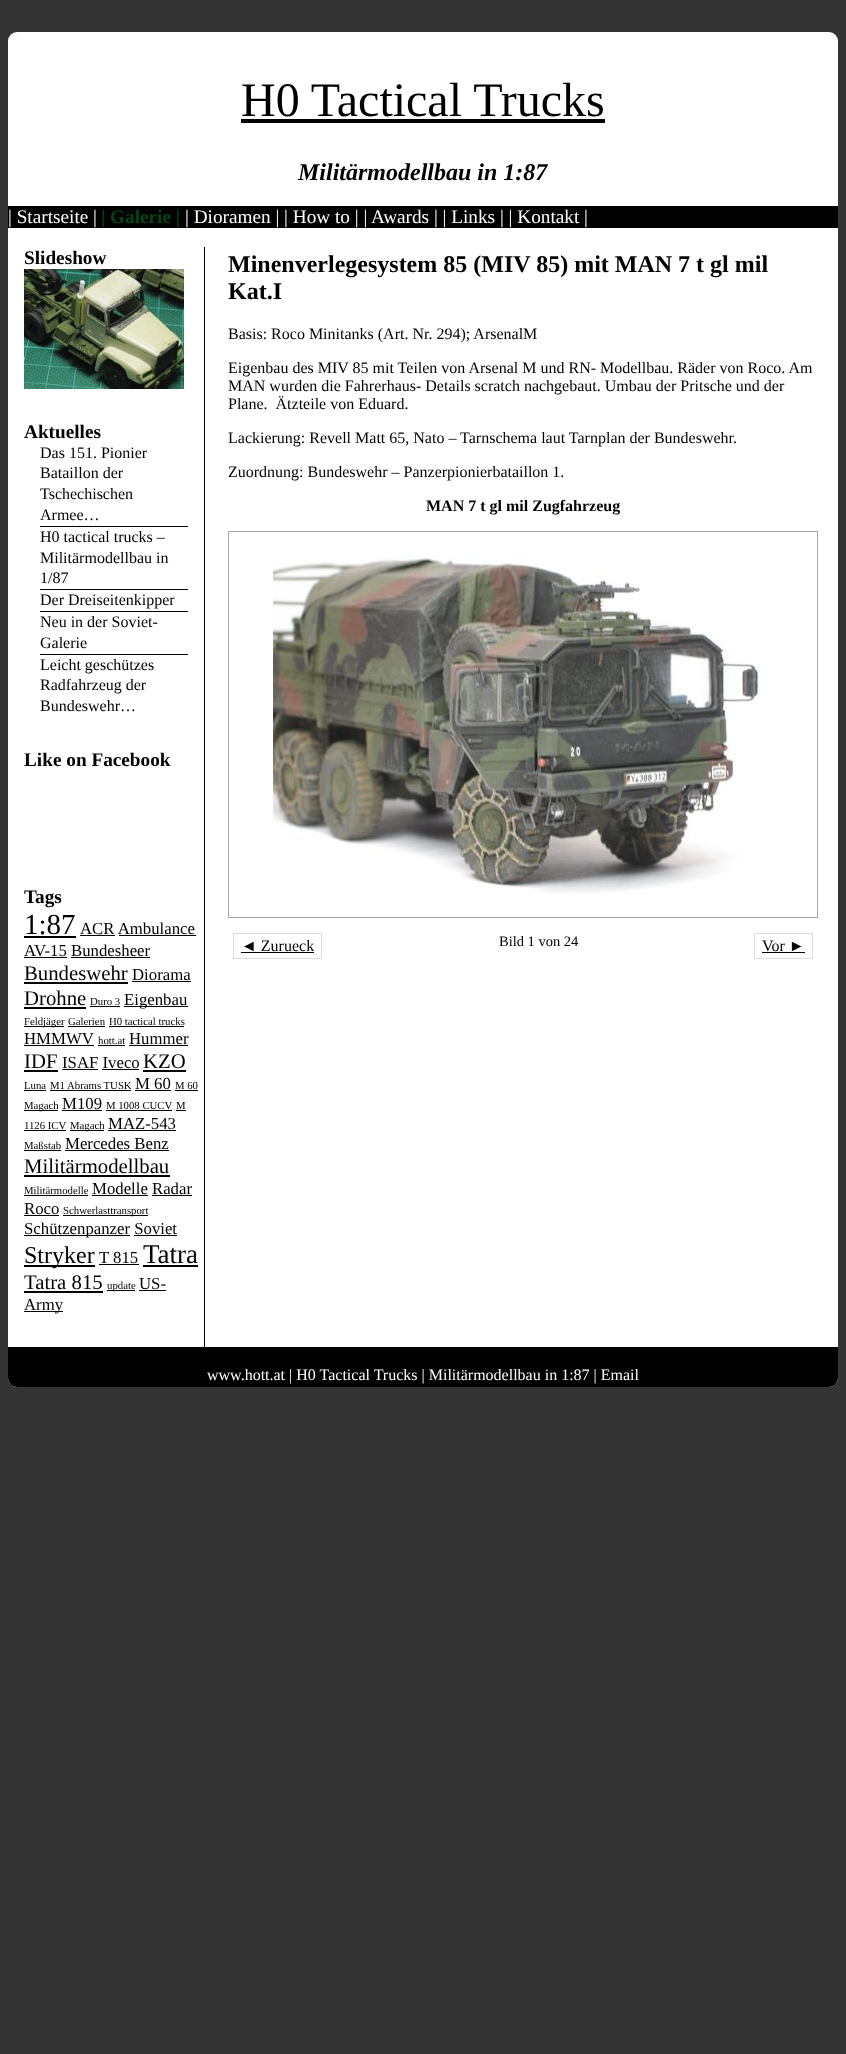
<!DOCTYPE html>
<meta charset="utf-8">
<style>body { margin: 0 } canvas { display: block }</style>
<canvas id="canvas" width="846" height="2054"></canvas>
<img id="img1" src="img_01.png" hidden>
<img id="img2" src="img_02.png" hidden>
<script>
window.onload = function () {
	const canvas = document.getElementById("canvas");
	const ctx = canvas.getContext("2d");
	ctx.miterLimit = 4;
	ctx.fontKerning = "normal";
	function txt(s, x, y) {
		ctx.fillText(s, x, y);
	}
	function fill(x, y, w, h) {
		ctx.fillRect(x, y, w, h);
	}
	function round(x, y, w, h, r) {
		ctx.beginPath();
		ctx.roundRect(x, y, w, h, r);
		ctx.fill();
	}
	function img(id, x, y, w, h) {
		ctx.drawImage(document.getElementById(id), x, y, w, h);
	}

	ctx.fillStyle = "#343434";
	fill(0, 0, 846, 2054);
	ctx.fillStyle = "#FFFFFF";
	round(8, 32, 830, 1355, 9);
	ctx.fillStyle = "#000000";
	fill(241, 119, 364, 4);
	fill(8, 206, 830, 22);
	fill(204, 247, 1, 1100);
	img("img1", 24, 269, 160, 120);
	fill(40, 526, 148, 1);
	fill(40, 589, 148, 1);
	fill(40, 611, 148, 1);
	fill(40, 654, 148, 1);
	fill(24, 936, 52, 2);
	fill(80, 935, 35, 1);
	fill(119, 935, 77, 1);
	fill(24, 957, 43, 1);
	fill(71, 957, 79, 1);
	fill(24, 982, 104, 2);
	fill(132, 981, 59, 1);
	fill(24, 1007, 62, 2);
	fill(90, 1006, 30, 1);
	fill(124, 1006, 64, 1);
	fill(24, 1026, 40, 1);
	fill(68, 1026, 37, 1);
	fill(109, 1026, 75, 1);
	fill(24, 1045, 70, 1);
	fill(98, 1045, 27, 1);
	fill(129, 1045, 59, 1);
	fill(24, 1070, 34, 2);
	fill(62, 1069, 36, 1);
	fill(143, 1070, 43, 2);
	fill(102, 1069, 37, 1);
	fill(24, 1090, 22, 1);
	fill(50, 1090, 81, 1);
	fill(135, 1090, 36, 1);
	fill(175, 1090, 23, 1);
	fill(24, 1110, 34, 1);
	fill(62, 1110, 40, 1);
	fill(106, 1110, 66, 1);
	fill(176, 1110, 10, 1);
	fill(24, 1130, 42, 1);
	fill(70, 1130, 34, 1);
	fill(108, 1130, 68, 1);
	fill(24, 1150, 37, 1);
	fill(65, 1150, 104, 1);
	fill(24, 1175, 146, 2);
	fill(24, 1195, 64, 1);
	fill(92, 1195, 56, 1);
	fill(152, 1195, 40, 1);
	fill(24, 1215, 35, 1);
	fill(63, 1215, 85, 1);
	fill(24, 1235, 106, 1);
	fill(134, 1235, 43, 1);
	fill(24, 1265, 71, 2);
	fill(99, 1264, 40, 1);
	fill(143, 1265, 55, 2);
	fill(24, 1291, 79, 2);
	fill(107, 1290, 28, 1);
	fill(139, 1290, 27, 1);
	fill(24, 1311, 39, 1);
	ctx.strokeStyle = "#A9A9A9";
	ctx.strokeRect(228.5, 531.5, 589, 386);
	img("img2", 273, 554, 488, 340);
	ctx.strokeStyle = "#DDDDDD";
	ctx.strokeRect(233.5, 933.5, 88, 25);
	fill(241, 952, 73, 1);
	ctx.strokeRect(754.5, 933.5, 58, 25);
	fill(762, 952, 43, 1);
	ctx.beginPath();
	ctx.roundRect(8, 1347, 830, 40, [0, 0, 9, 9]);
	ctx.fill();
	ctx.font = "48px Liberation Serif";
	txt("H0 Tactical Trucks", 241, 116);
	ctx.font = "italic bold 24px Liberation Serif";
	txt("Militärmodellbau in 1:87", 298, 180);
	ctx.font = "19.25px Liberation Serif";
	ctx.fillStyle = "#FFFFFF";
	txt("| Startseite |", 8, 223);
	ctx.font = "bold 19.25px Liberation Serif";
	ctx.fillStyle = "#004713";
	txt("| Galerie |", 101, 223);
	ctx.font = "19.25px Liberation Serif";
	ctx.fillStyle = "#FFFFFF";
	txt("| Dioramen | | How to | |", 185, 223);
	txt("Awards | | Links | | Kontakt |", 371, 223);
	ctx.font = "bold 19.25px Liberation Serif";
	ctx.fillStyle = "#000000";
	txt("Slideshow", 24, 264);
	txt("Aktuelles", 24, 438);
	ctx.font = "16px Liberation Serif";
	txt("Das 151. Pionier", 40, 458);
	txt("Bataillon der", 40, 478);
	txt("Tschechischen", 40, 499);
	txt("Armee…", 40, 520);
	txt("H0 tactical trucks –", 40, 542);
	txt("Militärmodellbau in", 40, 563);
	txt("1/87", 40, 583);
	txt("Der Dreiseitenkipper", 40, 605);
	txt("Neu in der Soviet-", 40, 627);
	txt("Galerie", 40, 648);
	txt("Leicht geschützes", 40, 670);
	txt("Radfahrzeug der", 40, 690);
	txt("Bundeswehr…", 40, 711);
	ctx.font = "bold 19.25px Liberation Serif";
	txt("Like on Facebook", 24, 766);
	txt("Tags", 24, 903);
	ctx.font = "29px Liberation Serif";
	txt("1:87", 24, 934);
	ctx.font = "16.75px Liberation Serif";
	txt("ACR Ambulance", 80, 934);
	txt("AV-15 Bundesheer", 24, 956);
	ctx.font = "20.75px Liberation Serif";
	txt("Bundeswehr", 24, 980);
	ctx.font = "16.75px Liberation Serif";
	txt("Diorama", 132, 980);
	ctx.font = "20.75px Liberation Serif";
	txt("Drohne", 24, 1005);
	ctx.font = "10.75px Liberation Serif";
	txt("Duro 3", 90, 1005);
	ctx.font = "16.75px Liberation Serif";
	txt("Eigenbau", 124, 1005);
	ctx.font = "10.75px Liberation Serif";
	txt("Feldjäger", 24, 1025);
	txt("Galerien", 68, 1025);
	txt("H0 tactical trucks", 109, 1025);
	ctx.font = "16.75px Liberation Serif";
	txt("HMMWV", 24, 1044);
	ctx.font = "10.75px Liberation Serif";
	txt("hott.at", 98, 1044);
	ctx.font = "16.75px Liberation Serif";
	txt("Hummer", 129, 1044);
	ctx.font = "20.75px Liberation Serif";
	txt("IDF", 24, 1068);
	ctx.font = "16.75px Liberation Serif";
	txt("ISAF Iveco", 62, 1068);
	ctx.font = "20.75px Liberation Serif";
	txt("KZO", 143, 1068);
	ctx.font = "10.75px Liberation Serif";
	txt("Luna", 24, 1089);
	txt("M1 Abrams TUSK", 50, 1089);
	ctx.font = "16.75px Liberation Serif";
	txt("M 60", 135, 1089);
	ctx.font = "10.75px Liberation Serif";
	txt("M 60", 175, 1089);
	txt("Magach", 24, 1109);
	ctx.font = "16.75px Liberation Serif";
	txt("M109", 62, 1109);
	ctx.font = "10.75px Liberation Serif";
	txt("M 1008 CUCV", 106, 1109);
	txt("M", 176, 1109);
	txt("1126 ICV", 24, 1129);
	txt("Magach", 70, 1129);
	ctx.font = "16.75px Liberation Serif";
	txt("MAZ-543", 108, 1129);
	ctx.font = "10.75px Liberation Serif";
	txt("Maßstab", 24, 1149);
	ctx.font = "16.75px Liberation Serif";
	txt("Mercedes Benz", 65, 1149);
	ctx.font = "20.75px Liberation Serif";
	txt("Militärmodellbau", 24, 1173);
	ctx.font = "10.75px Liberation Serif";
	txt("Militärmodelle", 24, 1194);
	ctx.font = "16.75px Liberation Serif";
	txt("Modelle Radar", 92, 1194);
	txt("Roco", 24, 1214);
	ctx.font = "10.75px Liberation Serif";
	txt("Schwerlasttransport", 63, 1214);
	ctx.font = "16.75px Liberation Serif";
	txt("Schützenpanzer Soviet", 24, 1234);
	ctx.font = "24px Liberation Serif";
	txt("Stryker", 24, 1263);
	ctx.font = "16.75px Liberation Serif";
	txt("T 815", 99, 1263);
	ctx.font = "27px Liberation Serif";
	txt("Tatra", 143, 1263);
	ctx.font = "20.75px Liberation Serif";
	txt("Tatra 815", 24, 1289);
	ctx.font = "10.75px Liberation Serif";
	txt("update", 107, 1289);
	ctx.font = "16.75px Liberation Serif";
	txt("US-", 139, 1289);
	txt("Army", 24, 1310);
	ctx.font = "bold 24px Liberation Serif";
	txt("Minenverlegesystem 85 (MIV 85) mit MAN 7 t gl mil", 228, 272);
	txt("Kat.I", 228, 299);
	ctx.font = "16px Liberation Serif";
	txt("Basis: Roco Minitanks (Art. Nr. 294); ArsenalM", 228, 339);
	txt("Eigenbau des MIV 85 mit Teilen von Arsenal M und RN- Modellbau. Räder von Roco. Am", 228, 373);
	txt("MAN wurden die Fahrerhaus- Details scratch nachgebaut. Umbau der Pritsche und der", 228, 391);
	txt("Plane.  Ätzteile von Eduard.", 228, 409);
	txt("Lackierung: Revell Matt 65, Nato – Tarnschema laut Tarnplan der Bundeswehr.", 228, 443);
	txt("Zuordnung: Bundeswehr – Panzerpionierbataillon 1.", 228, 477);
	ctx.font = "bold 16px Liberation Serif";
	txt("MAN 7 t gl mil Zugfahrzeug", 426, 511);
	ctx.font = "16px Liberation Serif";
	txt("◄ Zurueck", 241, 951);
	ctx.font = "14.5px Liberation Serif";
	txt("Bild 1 von 24", 499, 946);
	ctx.font = "16px Liberation Serif";
	txt("Vor ►", 762, 951);
	ctx.fillStyle = "#FFFFFF";
	txt("www.hott.at | H0 Tactical Trucks | Militärmodellbau in 1:87 | Email", 207, 1380);
};
</script>
